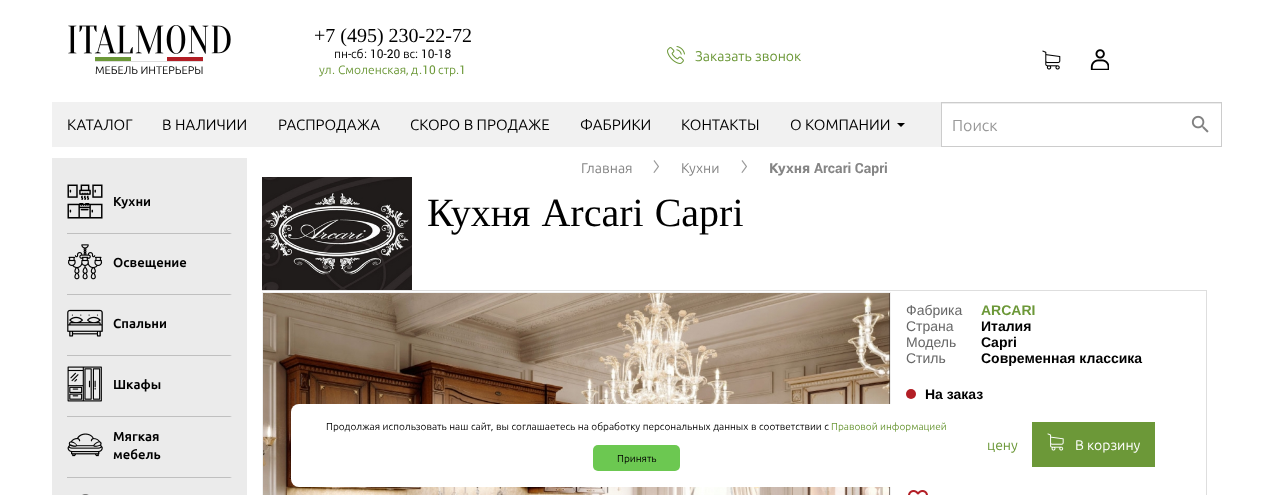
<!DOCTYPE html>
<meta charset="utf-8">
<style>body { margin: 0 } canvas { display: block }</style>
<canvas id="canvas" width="1273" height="495"></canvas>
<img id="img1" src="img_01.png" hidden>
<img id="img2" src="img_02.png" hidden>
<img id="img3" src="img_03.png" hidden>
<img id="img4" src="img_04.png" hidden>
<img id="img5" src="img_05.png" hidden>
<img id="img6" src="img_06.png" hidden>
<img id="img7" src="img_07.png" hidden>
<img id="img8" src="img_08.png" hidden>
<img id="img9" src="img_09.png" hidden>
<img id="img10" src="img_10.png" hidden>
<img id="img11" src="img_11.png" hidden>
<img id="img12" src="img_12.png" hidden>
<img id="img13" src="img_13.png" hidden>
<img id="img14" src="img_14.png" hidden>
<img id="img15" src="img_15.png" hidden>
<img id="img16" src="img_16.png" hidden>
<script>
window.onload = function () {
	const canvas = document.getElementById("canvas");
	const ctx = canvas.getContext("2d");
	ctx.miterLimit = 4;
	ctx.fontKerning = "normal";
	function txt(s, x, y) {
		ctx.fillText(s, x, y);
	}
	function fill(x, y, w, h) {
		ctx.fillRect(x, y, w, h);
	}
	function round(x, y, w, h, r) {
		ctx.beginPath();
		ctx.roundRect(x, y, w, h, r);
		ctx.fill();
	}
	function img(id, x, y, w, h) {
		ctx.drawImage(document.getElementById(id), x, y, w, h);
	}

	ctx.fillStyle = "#FFFFFF";
	fill(0, 0, 1273, 495);
	img("img1", 667, 46, 18, 18);
	img("img2", 1042, 50, 19, 20);
	img("img3", 1090, 49, 19, 21);
	img("img4", 68, 25, 163, 37);
	ctx.fillStyle = "#F1F1F1";
	fill(52, 102, 889, 45);
	ctx.fillStyle = "#000000";
	ctx.beginPath();
	ctx.moveTo(897, 123);
	ctx.lineTo(905, 123);
	ctx.lineTo(901, 127);
	ctx.closePath();
	ctx.fill();
	ctx.fillStyle = "#ECECEC";
	fill(942, 103, 279, 1);
	ctx.strokeStyle = "#CCCCCC";
	ctx.strokeRect(941.5, 102.5, 280, 44);
	img("img5", 1191, 115, 18, 18);
	ctx.fillStyle = "#EBEBEB";
	fill(52, 158, 195, 337);
	ctx.fillStyle = "#BFBFBF";
	ctx.beginPath();
	ctx.moveTo(232, 234);
	ctx.lineTo(67, 234);
	ctx.lineTo(67, 233);
	ctx.lineTo(230, 233);
	ctx.closePath();
	ctx.fill();
	img("img6", 67, 184, 36, 35);
	ctx.beginPath();
	ctx.moveTo(232, 295);
	ctx.lineTo(67, 295);
	ctx.lineTo(67, 294);
	ctx.lineTo(230, 294);
	ctx.closePath();
	ctx.fill();
	img("img7", 68, 244, 35, 36);
	ctx.beginPath();
	ctx.moveTo(232, 356);
	ctx.lineTo(67, 356);
	ctx.lineTo(67, 355);
	ctx.lineTo(230, 355);
	ctx.closePath();
	ctx.fill();
	img("img8", 67, 309, 36, 28);
	ctx.beginPath();
	ctx.moveTo(232, 417);
	ctx.lineTo(67, 417);
	ctx.lineTo(67, 416);
	ctx.lineTo(230, 416);
	ctx.closePath();
	ctx.fill();
	img("img9", 67, 366, 35, 36);
	ctx.beginPath();
	ctx.moveTo(232, 478);
	ctx.lineTo(67, 478);
	ctx.lineTo(67, 477);
	ctx.lineTo(230, 477);
	ctx.closePath();
	ctx.fill();
	img("img10", 67, 433, 36, 24);
	img("img11", 82, 494, 7, 1);
	img("img12", 653, 160, 6, 13);
	img("img12", 741, 160, 6, 13);
	img("img13", 262, 177, 150, 113);
	ctx.fillStyle = "#DEDEDE";
	fill(262, 290, 945, 1);
	fill(1206, 290, 1, 205);
	img("img14", 263, 293, 627, 202);
	ctx.strokeStyle = "#F1F1F1";
	ctx.strokeRect(262.5, 292.5, 628, 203);
	ctx.fillStyle = "#B21E25";
	ctx.beginPath();
	ctx.arc(911, 394, 5, 0, Math.PI * 2);
	ctx.fill();
	ctx.fillStyle = "#6C9838";
	fill(1032, 422, 123, 45);
	img("img15", 1047, 433, 17, 18);
	img("img16", 908, 490, 20, 5);
	ctx.fillStyle = "#FFFFFF";
	round(291, 404, 692, 83, 8);
	ctx.fillStyle = "#6CC851";
	round(593, 445, 87, 26, 5);
	ctx.font = "20px Liberation Serif";
	ctx.fillStyle = "#000000";
	txt("+7 (495) 230-22-72", 314, 42);
	ctx.font = "12px Ubuntu";
	txt("пн", 334, 58);
	ctx.font = "12px Roboto";
	txt("-", 348, 58);
	ctx.font = "12px Ubuntu";
	txt("сб", 351, 58);
	ctx.font = "12px Roboto";
	txt(": 10-20", 364, 58);
	ctx.font = "12px Ubuntu";
	txt("вс", 403, 58);
	ctx.font = "12px Roboto";
	txt(": 10-18", 415, 58);
	ctx.font = "12px Ubuntu";
	ctx.fillStyle = "#6C9838";
	txt("ул", 319, 74);
	ctx.font = "12px Roboto";
	txt(".", 332, 74);
	ctx.font = "12px Ubuntu";
	txt("Смоленская", 338, 74);
	ctx.font = "12px Roboto";
	txt(",", 406, 74);
	ctx.font = "12px Ubuntu";
	txt("д", 411, 74);
	ctx.font = "12px Roboto";
	txt(".10", 419, 74);
	ctx.font = "12px Ubuntu";
	txt("стр", 438, 74);
	ctx.font = "12px Roboto";
	txt(".1", 456, 74);
	ctx.font = "14px Ubuntu";
	txt("Заказать звонок", 695, 61);
	ctx.font = "11px Ubuntu";
	ctx.fillStyle = "#000000";
	txt("МЕБЕЛЬ ИНТЕРЬЕРЫ", 95, 74);
	ctx.font = "15px Ubuntu";
	txt("КАТАЛОГ", 67, 130);
	txt("В НАЛИЧИИ", 162, 130);
	txt("РАСПРОДАЖА", 278, 130);
	txt("СКОРО В ПРОДАЖЕ", 410, 130);
	txt("ФАБРИКИ", 580, 130);
	txt("КОНТАКТЫ", 681, 130);
	txt("О КОМПАНИИ", 790, 130);
	ctx.font = "16px Ubuntu";
	ctx.fillStyle = "#999999";
	txt("Поиск", 952, 131);
	ctx.font = "bold 13px Ubuntu";
	ctx.fillStyle = "#000000";
	txt("Кухни", 113, 206);
	txt("Освещение", 113, 267);
	txt("Спальни", 113, 328);
	txt("Шкафы", 113, 389);
	txt("Мягкая", 113, 441);
	txt("мебель", 113, 459);
	ctx.font = "14px Ubuntu";
	ctx.fillStyle = "#858585";
	txt("Главная", 581, 173);
	txt("Кухни", 681, 173);
	ctx.font = "800 14px Ubuntu";
	txt("Кухня", 769, 173);
	ctx.font = "bold 14px Roboto";
	txt("Arcari Capri", 814, 173);
	ctx.wordSpacing = "1px";
	ctx.font = "40px Liberation Serif";
	ctx.fillStyle = "#000000";
	txt("Кухня Arcari Capri", 427, 226);
	ctx.wordSpacing = "0px";
	ctx.font = "14px Liberation Sans";
	ctx.fillStyle = "#676767";
	txt("Фабрика", 906, 315);
	ctx.font = "bold 14px Liberation Sans";
	ctx.fillStyle = "#6C9838";
	txt("ARCARI", 981, 315);
	ctx.font = "14px Liberation Sans";
	ctx.fillStyle = "#676767";
	txt("Страна", 906, 331);
	ctx.font = "bold 14px Liberation Sans";
	ctx.fillStyle = "#000000";
	txt("Италия", 981, 331);
	ctx.font = "14px Liberation Sans";
	ctx.fillStyle = "#676767";
	txt("Модель", 906, 347);
	ctx.font = "bold 14px Liberation Sans";
	ctx.fillStyle = "#000000";
	txt("Capri", 981, 347);
	ctx.font = "14px Liberation Sans";
	ctx.fillStyle = "#676767";
	txt("Стиль", 906, 363);
	ctx.font = "bold 14px Liberation Sans";
	ctx.fillStyle = "#000000";
	txt("Современная классика", 981, 363);
	txt("На заказ", 925, 399);
	ctx.font = "14px Ubuntu";
	ctx.fillStyle = "#6C9838";
	txt("цену", 987, 450);
	ctx.fillStyle = "#FFFFFF";
	txt("В корзину", 1075, 450);
	ctx.wordSpacing = "0.25px";
	ctx.font = "10px Ubuntu";
	ctx.fillStyle = "#000000";
	txt("Продолжая использовать наш сайт", 326, 430);
	txt("вы соглашаетесь на обработку персональных данных в соответствии с", 496, 430);
	ctx.fillStyle = "#6C9838";
	txt("Правовой информацией", 831, 430);
	ctx.wordSpacing = "0px";
	ctx.font = "10px Roboto";
	ctx.fillStyle = "#000000";
	txt(",", 491, 430);
	ctx.font = "10px Ubuntu";
	txt("Принять", 617, 462);
};
</script>
